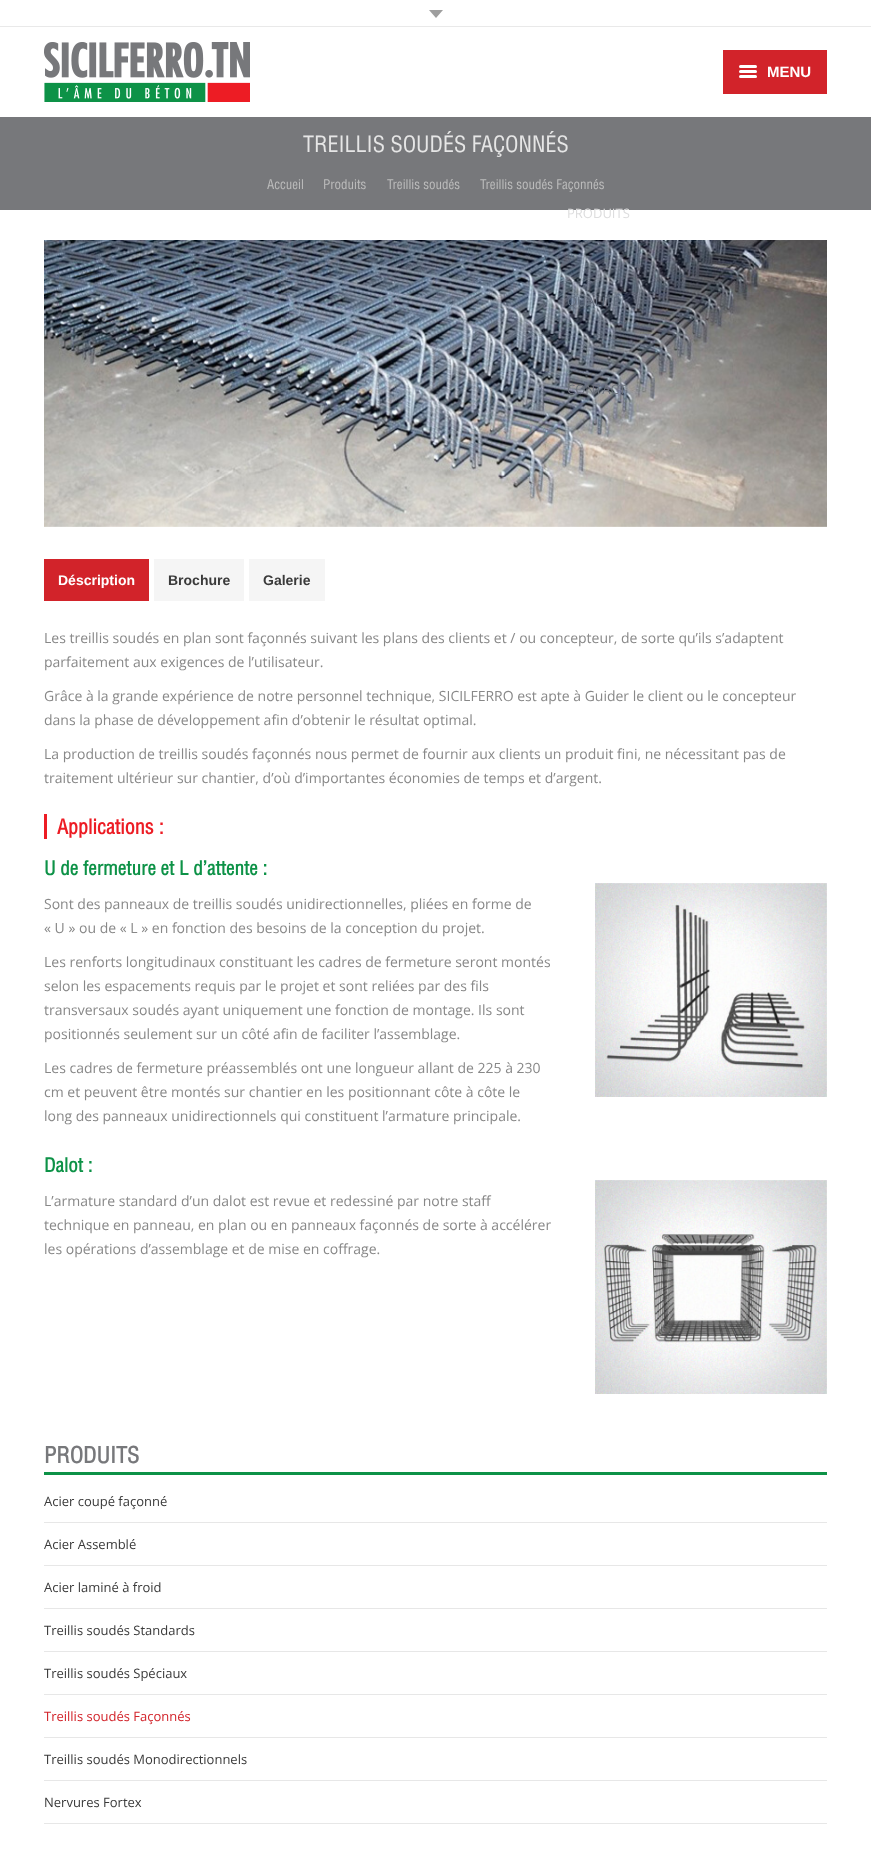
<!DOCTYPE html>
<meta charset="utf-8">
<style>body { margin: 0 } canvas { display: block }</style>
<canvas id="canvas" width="871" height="1862"></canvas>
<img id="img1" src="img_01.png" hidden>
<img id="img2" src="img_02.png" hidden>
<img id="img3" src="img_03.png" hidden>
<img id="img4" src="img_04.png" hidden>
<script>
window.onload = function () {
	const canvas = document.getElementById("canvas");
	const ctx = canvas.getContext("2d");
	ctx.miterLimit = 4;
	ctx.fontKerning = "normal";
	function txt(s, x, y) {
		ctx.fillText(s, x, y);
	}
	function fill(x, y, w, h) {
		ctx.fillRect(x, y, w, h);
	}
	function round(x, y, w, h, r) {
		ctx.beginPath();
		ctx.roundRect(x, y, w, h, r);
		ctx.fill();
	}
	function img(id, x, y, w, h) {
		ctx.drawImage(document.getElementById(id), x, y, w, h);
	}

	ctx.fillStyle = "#FFFFFF";
	fill(0, 0, 871, 1862);
	ctx.fillStyle = "#77787B";
	fill(0, 117, 871, 93);
	ctx.fillStyle = "#E9E9E9";
	fill(0, 26, 871, 1);
	ctx.fillStyle = "#9E9E9E";
	ctx.beginPath();
	ctx.moveTo(429, 10);
	ctx.lineTo(443, 10);
	ctx.lineTo(436, 18);
	ctx.closePath();
	ctx.fill();
	img("img1", 44, 42, 206, 60);
	ctx.fillStyle = "#D2232A";
	fill(723, 50, 104, 44);
	ctx.fillStyle = "#FFFFFF";
	round(739, 70, 18, 3, 1.5);
	round(739, 65, 18, 3, 1.5);
	round(739, 75, 18, 3, 1.5);
	img("img2", 44, 240, 783, 287);
	ctx.fillStyle = "#D2232A";
	fill(44, 559, 105, 42);
	ctx.fillStyle = "#F5F5F5";
	fill(154, 559, 90, 42);
	fill(249, 559, 76, 42);
	ctx.fillStyle = "#ED1C24";
	fill(44, 814, 3, 25);
	img("img3", 595, 883, 232, 214);
	img("img4", 595, 1180, 232, 214);
	ctx.fillStyle = "#0D9247";
	fill(44, 1472, 783, 3);
	ctx.fillStyle = "#E7E7E7";
	fill(44, 1522, 783, 1);
	fill(44, 1565, 783, 1);
	fill(44, 1608, 783, 1);
	fill(44, 1651, 783, 1);
	fill(44, 1694, 783, 1);
	fill(44, 1737, 783, 1);
	fill(44, 1780, 783, 1);
	fill(44, 1823, 783, 1);
	ctx.font = "500 22px Helvetica";
	ctx.fillStyle = "#E6E6E6";
	txt("TREILLIS SOUDÉS FAÇONNÉS", 303, 152);
	ctx.font = "500 13px Helvetica";
	ctx.fillStyle = "#BCBCBC";
	txt("Accueil", 267, 189);
	txt("Produits", 323, 189);
	txt("Treillis soudés", 387, 189);
	txt("Treillis soudés Façonnés", 480, 189);
	ctx.font = "bold 15px Liberation Sans";
	ctx.fillStyle = "#FFFFFF";
	txt("MENU", 767, 77);
	ctx.font = "13px Open Sans";
	ctx.fillStyle = "#DDDDDE";
	txt("PRODUITS", 567, 218);
	ctx.fillStyle = "#626C7B";
	txt("QUALITÉ", 567, 306);
	ctx.fillStyle = "#6D727C";
	txt("CONTACT", 567, 394);
	ctx.font = "bold 14px Liberation Sans";
	ctx.fillStyle = "#FFFFFF";
	txt("Déscription", 58, 585);
	ctx.fillStyle = "#3A3A3A";
	txt("Brochure", 168, 585);
	txt("Galerie", 263, 585);
	ctx.font = "14px Open Sans";
	ctx.fillStyle = "#888888";
	txt("Les treillis soudés en plan sont façonnés suivant les plans des clients et / ou concepteur, de sorte qu’ils s’adaptent", 44, 643);
	txt("parfaitement aux exigences de l’utilisateur.", 44, 667);
	txt("Grâce à la grande expérience de notre personnel technique, SICILFERRO est apte à Guider le client ou le concepteur", 44, 701);
	txt("dans la phase de développement afin d’obtenir le résultat optimal.", 44, 725);
	txt("La production de treillis soudés façonnés nous permet de fournir aux clients un produit fini, ne nécessitant pas de", 44, 759);
	txt("traitement ultérieur sur chantier, d’où d’importantes économies de temps et d’argent.", 44, 783);
	ctx.font = "bold 20px Helvetica";
	ctx.fillStyle = "#ED1C24";
	txt("Applications :", 57, 834);
	ctx.font = "bold 19px Helvetica";
	ctx.fillStyle = "#0D9247";
	txt("U de fermeture et L d’attente :", 44, 875);
	ctx.font = "14px Open Sans";
	ctx.fillStyle = "#888888";
	txt("Sont des panneaux de treillis soudés unidirectionnelles, pliées en forme de", 44, 909);
	txt("« U » ou de « L » en fonction des besoins de la conception du projet.", 44, 933);
	txt("Les renforts longitudinaux constituant les cadres de fermeture seront montés", 44, 967);
	txt("selon les espacements requis par le projet et sont reliées par des fils", 44, 991);
	txt("transversaux soudés ayant uniquement une fonction de montage. Ils sont", 44, 1015);
	txt("positionnés seulement sur un côté afin de faciliter l’assemblage.", 44, 1039);
	txt("Les cadres de fermeture préassemblés ont une longueur allant de 225 à 230", 44, 1073);
	txt("cm et peuvent être montés sur chantier en les positionnant côte à côte le", 44, 1097);
	txt("long des panneaux unidirectionnels qui constituent l’armature principale.", 44, 1121);
	ctx.font = "bold 19px Helvetica";
	ctx.fillStyle = "#0D9247";
	txt("Dalot :", 44, 1172);
	ctx.font = "14px Open Sans";
	ctx.fillStyle = "#888888";
	txt("L’armature standard d’un dalot est revue et redessiné par notre staff", 44, 1206);
	txt("technique en panneau, en plan ou en panneaux façonnés de sorte à accélérer", 44, 1230);
	txt("les opérations d’assemblage et de mise en coffrage.", 44, 1254);
	ctx.font = "bold 22px Helvetica";
	ctx.fillStyle = "#77787B";
	txt("PRODUITS", 44, 1463);
	ctx.font = "13px Open Sans";
	ctx.fillStyle = "#3A3A3A";
	txt("Acier coupé façonné", 44, 1506);
	txt("Acier Assemblé", 44, 1549);
	txt("Acier laminé à froid", 44, 1592);
	txt("Treillis soudés Standards", 44, 1635);
	txt("Treillis soudés Spéciaux", 44, 1678);
	ctx.fillStyle = "#D2232A";
	txt("Treillis soudés Façonnés", 44, 1721);
	ctx.fillStyle = "#3A3A3A";
	txt("Treillis soudés Monodirectionnels", 44, 1764);
	txt("Nervures Fortex", 44, 1807);
};
</script>
